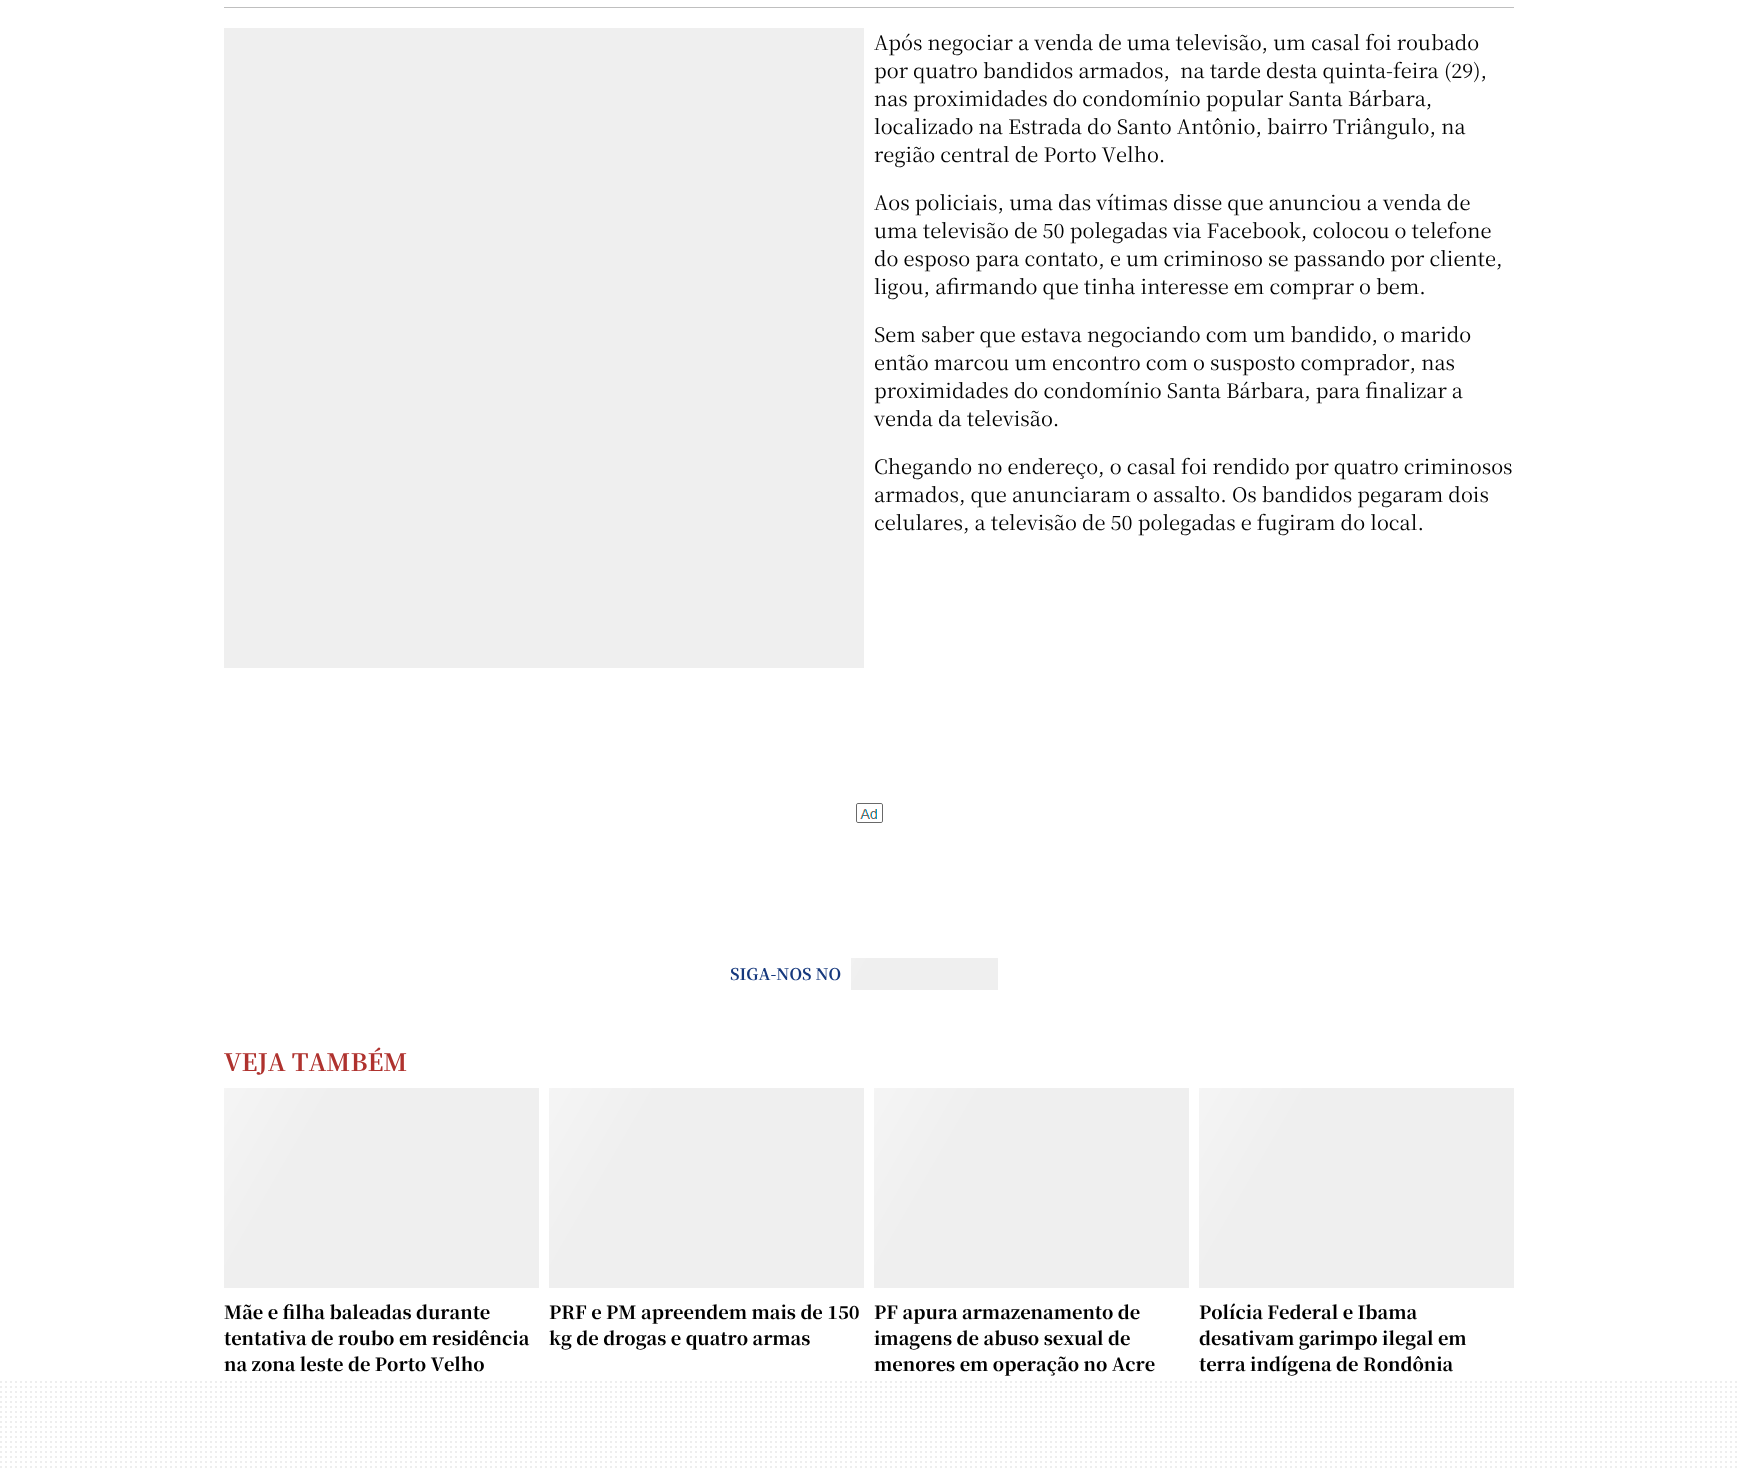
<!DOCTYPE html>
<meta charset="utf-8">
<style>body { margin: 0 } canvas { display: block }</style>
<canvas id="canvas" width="1738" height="1470"></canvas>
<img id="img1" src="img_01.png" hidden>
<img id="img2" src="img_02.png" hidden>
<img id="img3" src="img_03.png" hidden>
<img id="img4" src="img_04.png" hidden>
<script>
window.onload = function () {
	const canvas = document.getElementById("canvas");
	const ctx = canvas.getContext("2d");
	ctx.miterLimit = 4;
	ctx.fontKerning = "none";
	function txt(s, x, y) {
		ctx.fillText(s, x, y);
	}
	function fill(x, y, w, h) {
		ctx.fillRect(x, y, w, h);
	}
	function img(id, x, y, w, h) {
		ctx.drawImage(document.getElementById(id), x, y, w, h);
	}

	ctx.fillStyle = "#FFFFFF";
	fill(0, 0, 1738, 1470);
	ctx.fillStyle = "#BFBFBF";
	fill(224, 7, 1290, 1);
	ctx.fillStyle = "#EFEFEF";
	fill(224, 28, 640, 640);
	img("img1", 856, 803, 27, 20);
	img("img2", 851, 958, 147, 32);
	img("img3", 224, 1088, 315, 200);
	img("img3", 549, 1088, 315, 200);
	img("img3", 874, 1088, 315, 200);
	img("img3", 1199, 1088, 315, 200);
	img("img4", 0, 1381, 1737, 87);
	ctx.font = "20px Noto Serif SC";
	ctx.fillStyle = "#000000";
	txt("Após negociar a venda de uma televisão, um casal foi roubado", 874, 50);
	txt("por quatro bandidos armados,  na tarde desta quinta-feira (29),", 874, 78);
	txt("nas proximidades do condomínio popular Santa Bárbara,", 874, 106);
	txt("localizado na Estrada do Santo Antônio, bairro Triângulo, na", 874, 134);
	txt("região central de Porto Velho.", 874, 162);
	txt("Aos policiais, uma das vítimas disse que anunciou a venda de", 874, 210);
	txt("uma televisão de 50 polegadas via Facebook, colocou o telefone", 874, 238);
	txt("do esposo para contato, e um criminoso se passando por cliente,", 874, 266);
	txt("ligou, afirmando que tinha interesse em comprar o bem.", 874, 294);
	txt("Sem saber que estava negociando com um bandido, o marido", 874, 342);
	txt("então marcou um encontro com o susposto comprador, nas", 874, 370);
	txt("proximidades do condomínio Santa Bárbara, para finalizar a", 874, 398);
	txt("venda da televisão.", 874, 426);
	txt("Chegando no endereço, o casal foi rendido por quatro criminosos", 874, 474);
	txt("armados, que anunciaram o assalto. Os bandidos pegaram dois", 874, 502);
	txt("celulares, a televisão de 50 polegadas e fugiram do local.", 874, 530);
	ctx.font = "bold 16px Noto Serif SC";
	ctx.fillStyle = "#15387D";
	txt("SIGA-NOS NO", 730, 980);
	ctx.font = "bold 24px Noto Serif SC";
	ctx.fillStyle = "#AF322E";
	txt("VEJA TAMBÉM", 224, 1071);
	ctx.font = "800 18px Noto Serif SC";
	ctx.fillStyle = "#000000";
	txt("Mãe e filha baleadas durante", 224, 1319);
	txt("tentativa de roubo em residência", 224, 1345);
	txt("na zona leste de Porto Velho", 224, 1371);
	txt("PRF e PM apreendem mais de 150", 549, 1319);
	txt("kg de drogas e quatro armas", 549, 1345);
	txt("PF apura armazenamento de", 874, 1319);
	txt("imagens de abuso sexual de", 874, 1345);
	txt("menores em operação no Acre", 874, 1371);
	txt("Polícia Federal e Ibama", 1199, 1319);
	txt("desativam garimpo ilegal em", 1199, 1345);
	txt("terra indígena de Rondônia", 1199, 1371);
};
</script>
